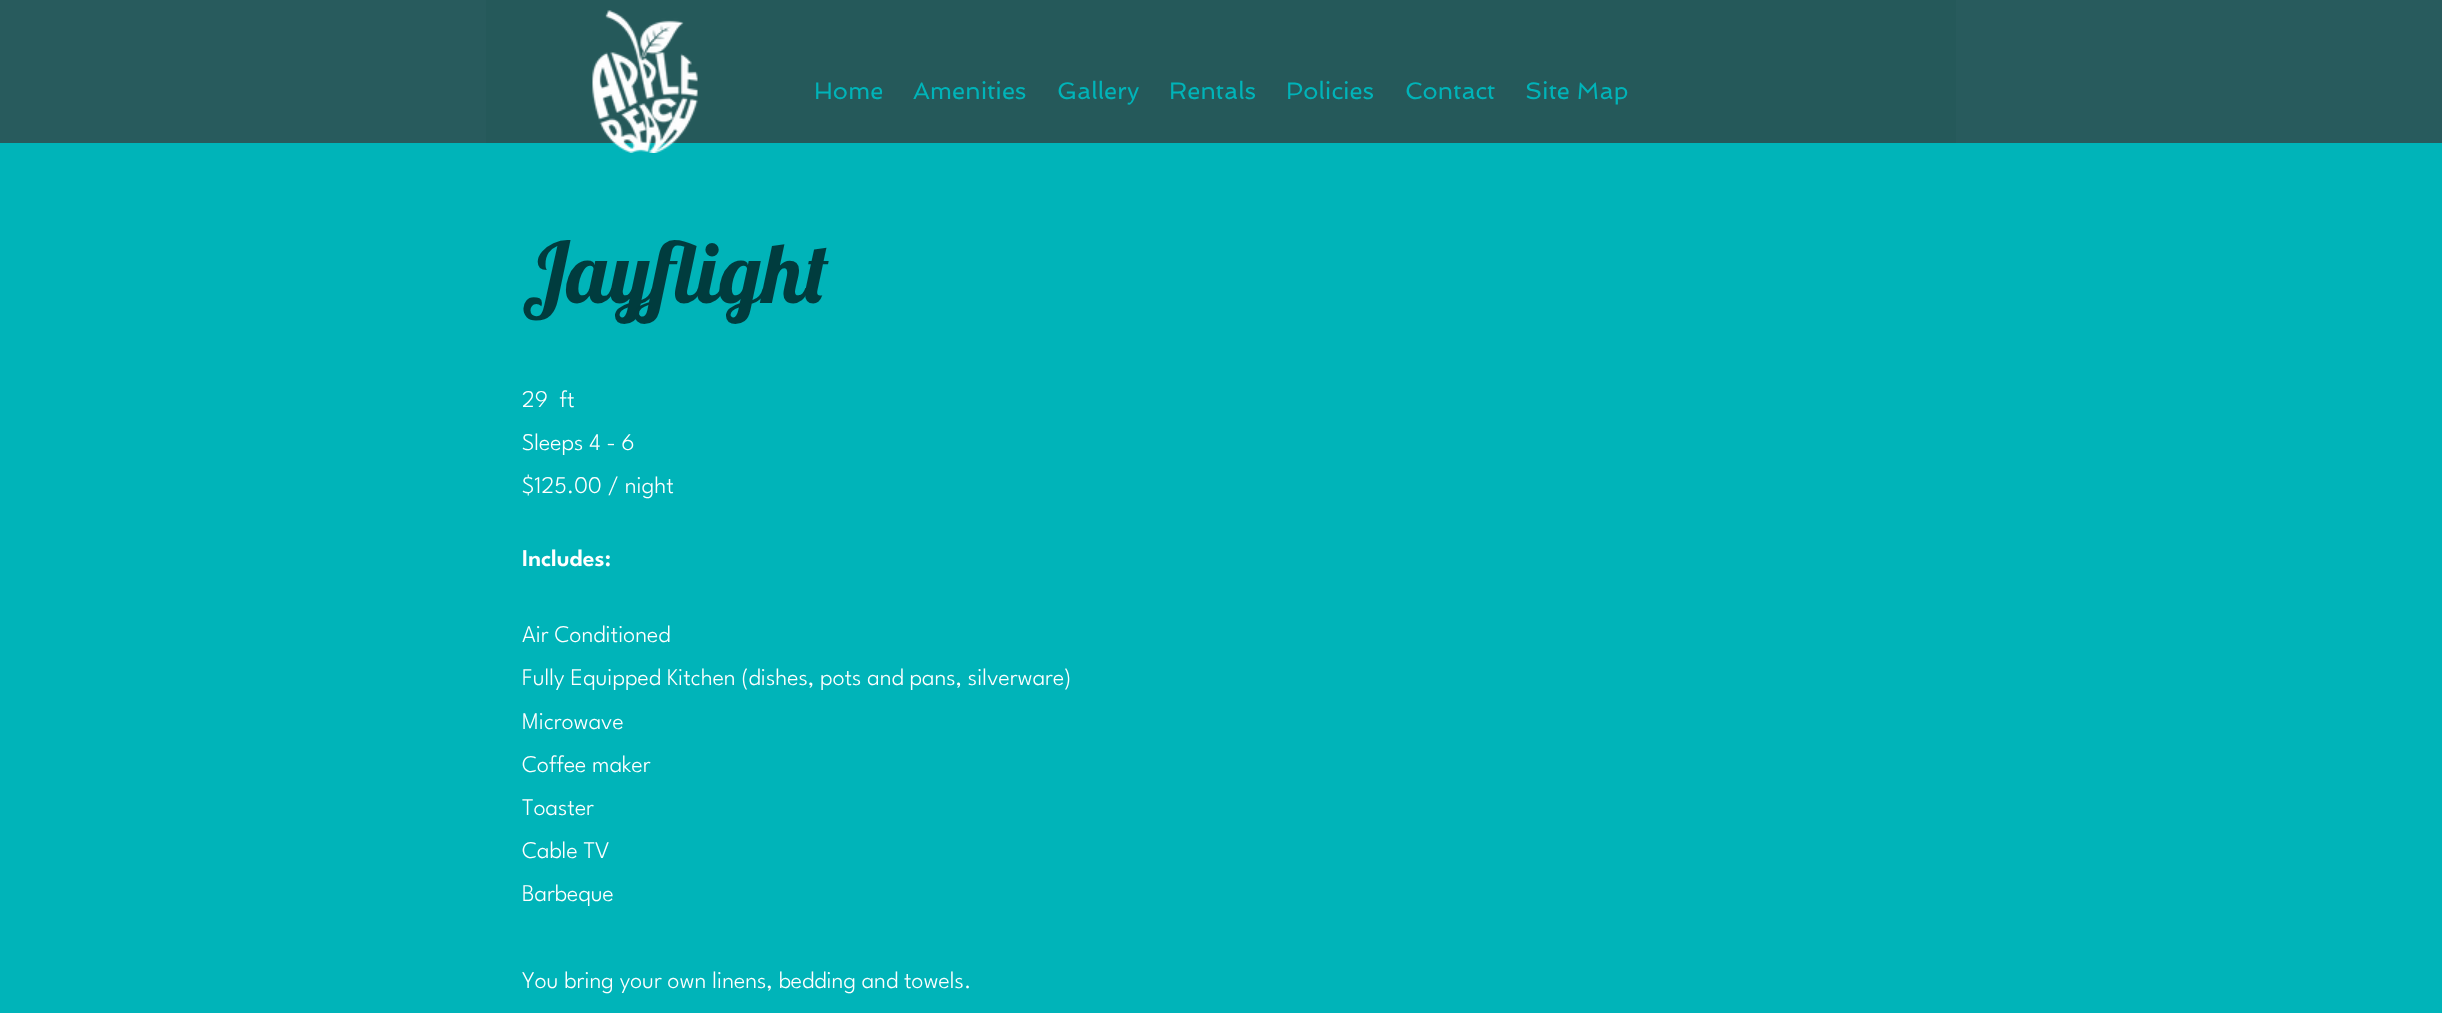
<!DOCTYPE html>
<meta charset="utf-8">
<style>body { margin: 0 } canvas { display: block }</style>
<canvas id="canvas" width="2442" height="1013"></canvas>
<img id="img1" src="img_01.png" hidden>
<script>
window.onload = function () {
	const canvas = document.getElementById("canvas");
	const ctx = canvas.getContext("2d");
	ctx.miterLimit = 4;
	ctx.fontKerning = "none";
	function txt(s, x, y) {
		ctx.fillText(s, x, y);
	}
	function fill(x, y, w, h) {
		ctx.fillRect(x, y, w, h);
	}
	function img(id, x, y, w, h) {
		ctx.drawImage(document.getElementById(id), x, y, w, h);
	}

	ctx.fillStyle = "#00B4B9";
	fill(0, 0, 2442, 1013);
	ctx.fillStyle = "#285B5D";
	fill(0, 0, 2442, 143);
	ctx.fillStyle = "#25595A";
	fill(486, 0, 1470, 143);
	img("img1", 592, 10, 106, 143);
	ctx.font = "24px Spinnaker";
	ctx.fillStyle = "#00B4B9";
	txt("Home", 814, 99);
	txt("Amenities", 913, 99);
	txt("Gallery", 1057, 99);
	txt("Rentals", 1169, 99);
	txt("Policies", 1286, 99);
	txt("Contact", 1405, 99);
	txt("Site Map", 1525, 99);
	ctx.font = "84px Lobster";
	ctx.fillStyle = "#003C3E";
	txt("Jayflight", 522, 303);
	ctx.font = "300 24px League Spartan";
	ctx.fillStyle = "#FFFFFF";
	txt("29  ft", 522, 407);
	txt("Sleeps 4 - 6", 522, 450);
	txt("$125.00 / night", 522, 493);
	ctx.font = "600 24px League Spartan";
	txt("Includes:", 522, 566);
	ctx.font = "300 24px League Spartan";
	txt("Air Conditioned", 522, 642);
	txt("Fully Equipped Kitchen (dishes, pots and pans, silverware)", 522, 685);
	txt("Microwave", 522, 729);
	txt("Coffee maker", 522, 772);
	txt("Toaster", 522, 815);
	txt("Cable TV", 522, 858);
	txt("Barbeque", 522, 901);
	txt("You bring your own linens, bedding and towels.", 522, 988);
};
</script>
